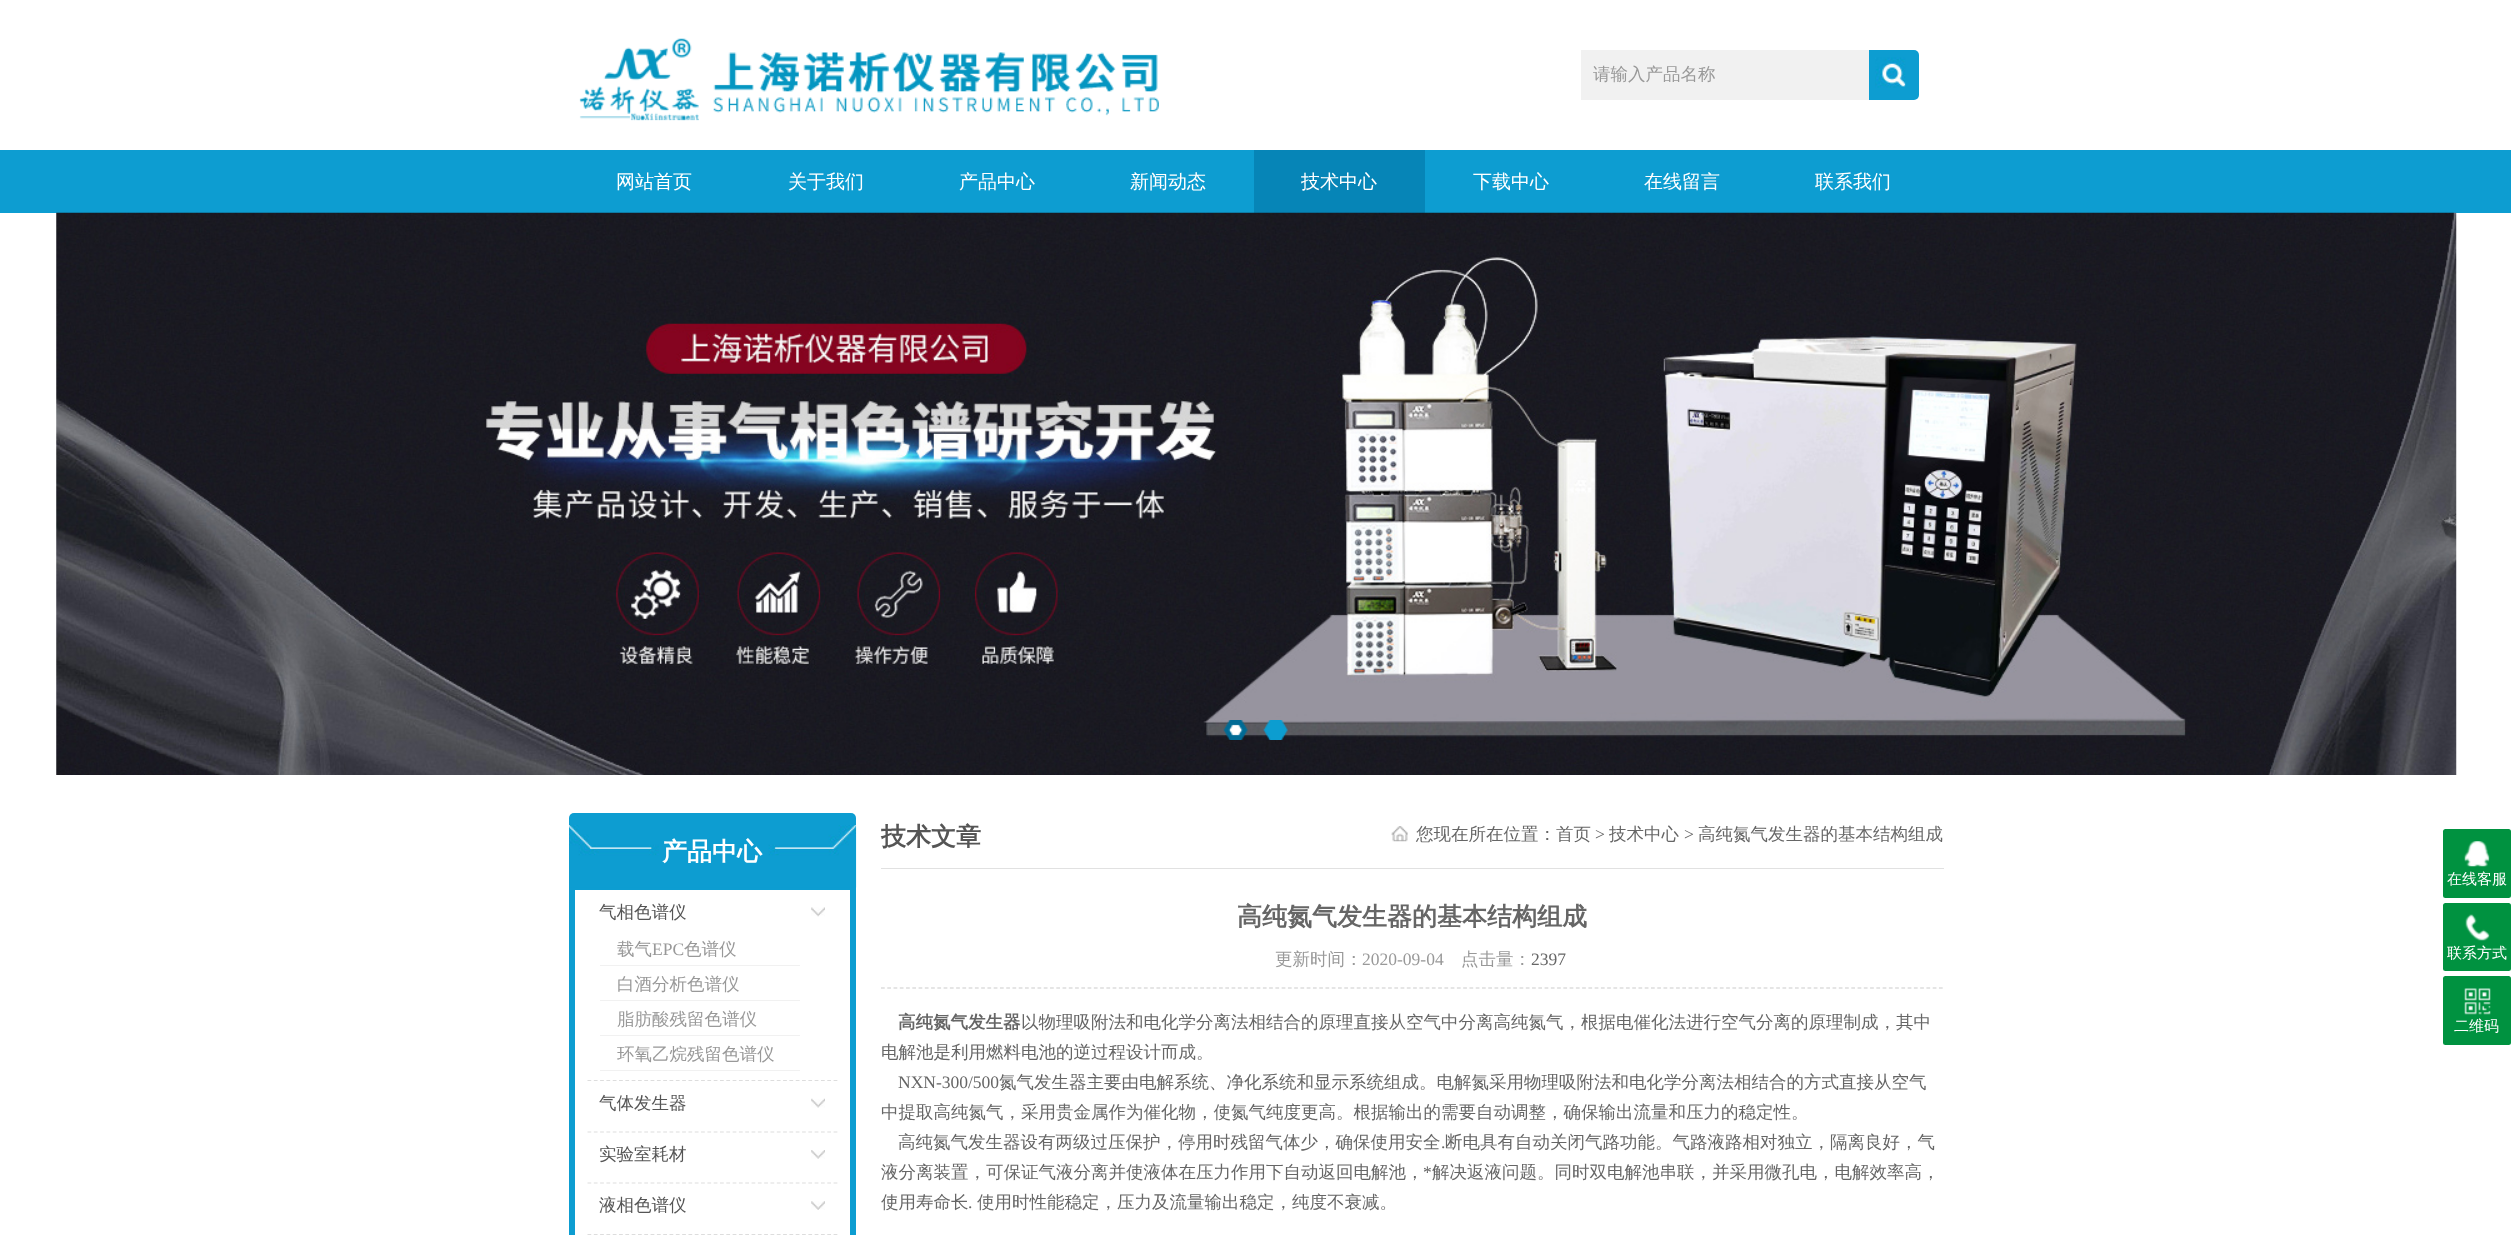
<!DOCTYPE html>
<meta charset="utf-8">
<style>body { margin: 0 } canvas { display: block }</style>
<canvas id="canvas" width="2511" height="1235"></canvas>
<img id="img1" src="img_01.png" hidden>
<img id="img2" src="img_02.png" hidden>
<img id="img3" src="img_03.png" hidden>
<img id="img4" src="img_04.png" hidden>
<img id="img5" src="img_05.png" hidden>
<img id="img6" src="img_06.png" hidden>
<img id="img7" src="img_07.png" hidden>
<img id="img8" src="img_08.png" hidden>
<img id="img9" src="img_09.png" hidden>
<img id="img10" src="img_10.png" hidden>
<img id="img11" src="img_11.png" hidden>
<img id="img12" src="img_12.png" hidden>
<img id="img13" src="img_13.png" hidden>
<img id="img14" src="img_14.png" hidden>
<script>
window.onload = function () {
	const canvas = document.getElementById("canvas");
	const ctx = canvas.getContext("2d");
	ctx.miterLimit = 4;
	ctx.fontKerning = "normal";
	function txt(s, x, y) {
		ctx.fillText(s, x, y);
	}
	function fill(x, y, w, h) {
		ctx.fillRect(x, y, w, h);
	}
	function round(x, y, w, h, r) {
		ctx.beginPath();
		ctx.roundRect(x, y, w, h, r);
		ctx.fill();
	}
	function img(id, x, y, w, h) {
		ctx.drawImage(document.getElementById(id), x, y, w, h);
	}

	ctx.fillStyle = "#FFFFFF";
	fill(0, 0, 2511, 1235);
	img("img1", 579, 38, 580, 83);
	ctx.fillStyle = "#F1F1F1";
	fill(1581, 50, 288, 50);
	ctx.fillStyle = "#0D9DD1";
	ctx.beginPath();
	ctx.roundRect(1869, 50, 50, 50, [0, 5, 5, 0]);
	ctx.fill();
	img("img2", 1875, 57, 31, 31);
	fill(0, 150, 2511, 63);
	ctx.fillStyle = "#0685B7";
	fill(1254, 150, 171, 63);
	img("img3", 56, 212, 2401, 563);
	img("img4", 1223, 720, 25, 20);
	img("img5", 1263, 720, 25, 20);
	ctx.fillStyle = "#0D9DD1";
	ctx.beginPath();
	ctx.roundRect(569, 813, 287, 77, [5, 5, 0, 0]);
	ctx.fill();
	img("img6", 569, 825, 288, 63);
	fill(850, 890, 6, 345);
	fill(569, 890, 6, 345);
	ctx.beginPath();
	ctx.moveTo(587.5, 1080.5);
	ctx.lineTo(837.5, 1080.5);
	ctx.strokeStyle = "#DDDDDD";
	ctx.lineWidth = 1.2;
	ctx.setLineDash([3.75, 2.56]);
	ctx.stroke();
	img("img7", 811, 907, 14, 10);
	ctx.fillStyle = "#F1F1F1";
	fill(600, 965, 200, 1);
	fill(600, 1000, 200, 1);
	fill(600, 1035, 200, 1);
	fill(600, 1070, 200, 1);
	ctx.beginPath();
	ctx.moveTo(587.5, 1132);
	ctx.lineTo(837.5, 1132);
	ctx.stroke();
	img("img8", 811, 1098, 14, 10);
	ctx.beginPath();
	ctx.moveTo(587.5, 1183);
	ctx.lineTo(837.5, 1183);
	ctx.stroke();
	img("img9", 811, 1150, 14, 9);
	ctx.beginPath();
	ctx.moveTo(587.5, 1234.5);
	ctx.lineTo(837.5, 1234.5);
	ctx.stroke();
	img("img10", 811, 1201, 14, 9);
	ctx.fillStyle = "#E1E1E1";
	fill(881, 868, 1063, 1);
	img("img11", 1391, 826, 17, 16);
	ctx.beginPath();
	ctx.moveTo(881, 988);
	ctx.lineTo(1944, 988);
	ctx.strokeStyle = "#CCCCCC";
	ctx.setLineDash([3.75, 2.51]);
	ctx.stroke();
	ctx.fillStyle = "#009240";
	round(2443, 829, 68, 69, 2.5);
	img("img12", 2464, 841, 26, 26);
	round(2443, 903, 68, 68, 2.5);
	img("img13", 2465, 914, 25, 27);
	round(2443, 976, 68, 69, 2.5);
	img("img14", 2464, 988, 27, 27);
	ctx.font = "500 17.5px WenQuanYi Zen Hei";
	ctx.fillStyle = "#999999";
	txt("请输入产品名称", 1593, 80);
	ctx.font = "500 19px WenQuanYi Zen Hei";
	ctx.fillStyle = "#FFFFFF";
	txt("网站首页", 616, 188);
	txt("关于我们", 788, 188);
	txt("产品中心", 959, 188);
	txt("新闻动态", 1130, 188);
	txt("技术中心", 1301, 188);
	txt("下载中心", 1473, 188);
	txt("在线留言", 1644, 188);
	txt("联系我们", 1815, 188);
	ctx.font = "bold 25px WenQuanYi Zen Hei";
	txt("产品中心", 662, 860);
	ctx.font = "500 17.5px WenQuanYi Zen Hei";
	ctx.fillStyle = "#555555";
	txt("气相色谱仪", 599, 918);
	ctx.fillStyle = "#999999";
	txt("载气", 617, 955);
	ctx.font = "17.5px Liberation Serif";
	txt("EPC", 652, 955);
	ctx.font = "500 17.5px WenQuanYi Zen Hei";
	txt("色谱仪", 684, 955);
	txt("白酒分析色谱仪", 617, 990);
	txt("脂肪酸残留色谱仪", 617, 1025);
	txt("环氧乙烷残留色谱仪", 617, 1060);
	ctx.fillStyle = "#555555";
	txt("气体发生器", 599, 1109);
	txt("实验室耗材", 599, 1160);
	txt("液相色谱仪", 599, 1211);
	ctx.font = "bold 25px WenQuanYi Zen Hei";
	txt("技术文章", 881, 845);
	ctx.font = "500 17.5px WenQuanYi Zen Hei";
	ctx.fillStyle = "#666666";
	txt("您现在所在位置：首页", 1416, 840);
	ctx.font = "17.5px Liberation Serif";
	txt(">", 1595, 840);
	ctx.font = "500 17.5px WenQuanYi Zen Hei";
	txt("技术中心", 1609, 840);
	ctx.font = "17.5px Liberation Serif";
	txt(">", 1684, 840);
	ctx.font = "500 17.5px WenQuanYi Zen Hei";
	txt("高纯氮气发生器的基本结构组成", 1698, 840);
	ctx.font = "bold 25px WenQuanYi Zen Hei";
	txt("高纯氮气发生器的基本结构组成", 1237, 925);
	ctx.font = "500 17.5px WenQuanYi Zen Hei";
	ctx.fillStyle = "#999999";
	txt("更新时间：", 1275, 965);
	ctx.font = "17.5px Liberation Serif";
	txt("2020-09-04", 1362, 965);
	ctx.font = "500 17.5px WenQuanYi Zen Hei";
	txt("点击量：", 1461, 965);
	ctx.font = "17.5px Liberation Serif";
	ctx.fillStyle = "#666666";
	txt("2397", 1531, 965);
	ctx.font = "bold 17.5px WenQuanYi Zen Hei";
	txt("高纯氮气发生器", 898, 1028);
	ctx.font = "500 17.5px WenQuanYi Zen Hei";
	txt("以物理吸附法和电化学分离法相结合的原理直接从空气中分离高纯氮气，根据电催化法进行空气分离的原理制成，其中", 1021, 1028);
	txt("电解池是利用燃料电池的逆过程设计而成。", 881, 1058);
	ctx.font = "17.5px Liberation Serif";
	txt("NXN-300/500", 898, 1088);
	ctx.font = "500 17.5px WenQuanYi Zen Hei";
	txt("氮气发生器主要由电解系统、净化系统和显示系统组成。电解氮采用物理吸附法和电化学分离法相结合的方式直接从空气", 999, 1088);
	txt("中提取高纯氮气，采用贵金属作为催化物，使氮气纯度更高。根据输出的需要自动调整，确保输出流量和压力的稳定性。", 881, 1118);
	txt("高纯氮气发生器设有两级过压保护，停用时残留气体少，确保使用安全", 898, 1148);
	ctx.font = "17.5px Liberation Serif";
	txt(".", 1441, 1148);
	ctx.font = "500 17.5px WenQuanYi Zen Hei";
	txt("断电具有自动关闭气路功能。气路液路相对独立，隔离良好，气", 1445, 1148);
	txt("液分离装置，可保证气液分离并使液体在压力作用下自动返回电解池，", 881, 1178);
	ctx.font = "17.5px Liberation Serif";
	txt("*", 1423, 1178);
	ctx.font = "500 17.5px WenQuanYi Zen Hei";
	txt("解决返液问题。同时双电解池串联，并采用微孔电，电解效率高，", 1432, 1178);
	txt("使用寿命长", 881, 1208);
	ctx.font = "17.5px Liberation Serif";
	txt(".", 968, 1208);
	ctx.font = "500 17.5px WenQuanYi Zen Hei";
	txt("使用时性能稳定，压力及流量输出稳定，纯度不衰减。", 977, 1208);
	ctx.font = "500 15px WenQuanYi Zen Hei";
	ctx.fillStyle = "#FFFFFF";
	txt("在线客服", 2447, 884);
	txt("联系方式", 2447, 958);
	txt("二维码", 2454, 1031);
};
</script>
